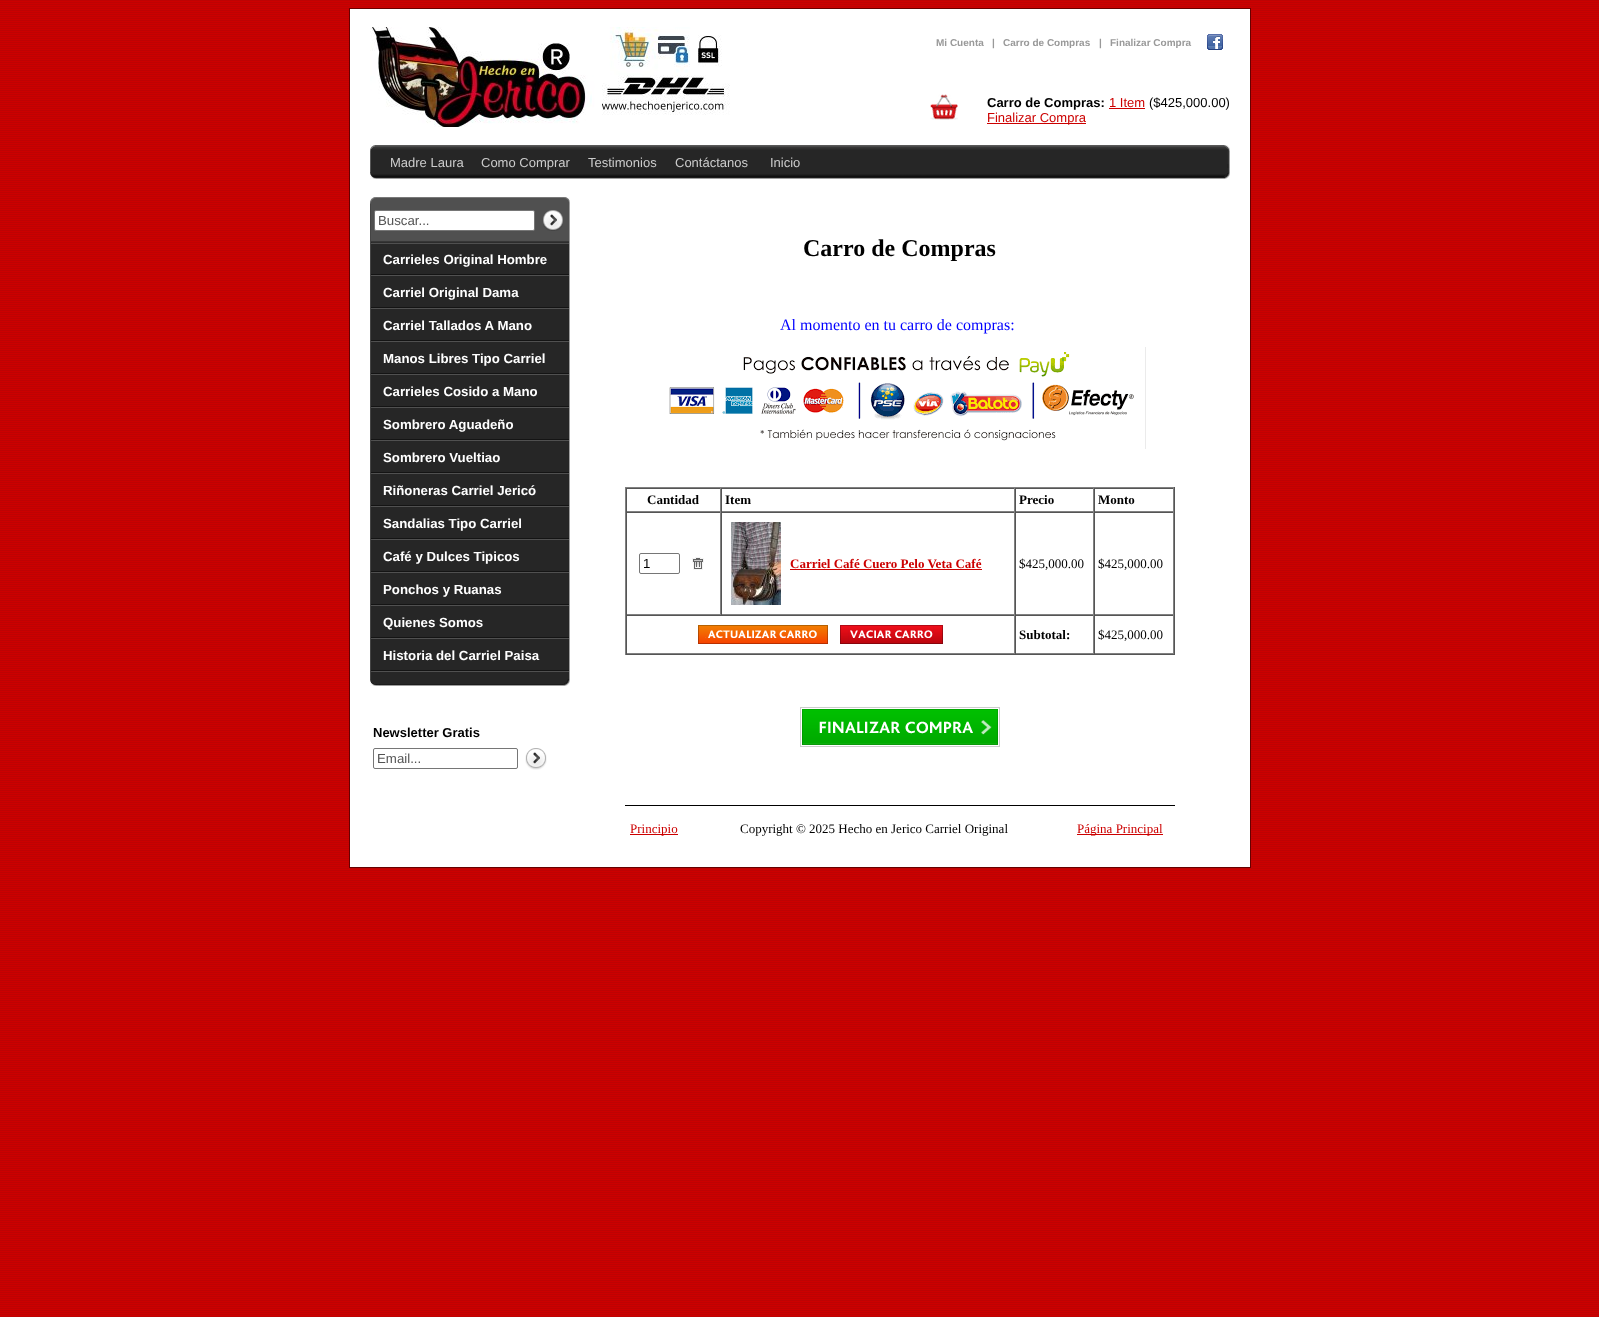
<!DOCTYPE html>
<meta charset="utf-8">
<style>body { margin: 0 } canvas { display: block }</style>
<canvas id="canvas" width="1599" height="1317"></canvas>
<img id="img1" src="img_01.png" hidden>
<img id="img2" src="img_02.png" hidden>
<img id="img3" src="img_03.png" hidden>
<img id="img4" src="img_04.png" hidden>
<img id="img5" src="img_05.png" hidden>
<img id="img6" src="img_06.png" hidden>
<img id="img7" src="img_07.png" hidden>
<img id="img8" src="img_08.png" hidden>
<img id="img9" src="img_09.png" hidden>
<img id="img10" src="img_10.png" hidden>
<img id="img11" src="img_11.png" hidden>
<img id="img12" src="img_12.png" hidden>
<img id="img13" src="img_13.png" hidden>
<img id="img14" src="img_14.png" hidden>
<img id="img15" src="img_15.png" hidden>
<img id="img16" src="img_16.png" hidden>
<img id="img17" src="img_17.png" hidden>
<img id="img18" src="img_18.png" hidden>
<img id="img19" src="img_19.png" hidden>
<img id="img20" src="img_20.png" hidden>
<script>
window.onload = function () {
	const canvas = document.getElementById("canvas");
	const ctx = canvas.getContext("2d");
	ctx.miterLimit = 4;
	ctx.fontKerning = "normal";
	function txt(s, x, y) {
		ctx.fillText(s, x, y);
	}
	function fill(x, y, w, h) {
		ctx.fillRect(x, y, w, h);
	}
	function img(id, x, y, w, h) {
		ctx.drawImage(document.getElementById(id), x, y, w, h);
	}

	ctx.fillStyle = "#BD0303";
	fill(0, 0, 1599, 1317);
	img("img1", 0, 1, 1599, 1315);
	ctx.fillStyle = "#670000";
	fill(349, 8, 902, 860);
	ctx.fillStyle = "#FFFFFF";
	fill(350, 9, 900, 858);
	img("img2", 370, 27, 360, 100);
	img("img3", 1207, 34, 16, 16);
	img("img4", 930, 94, 28, 26);
	ctx.fillStyle = "#CC0000";
	fill(1109, 108, 36, 1);
	fill(987, 123, 99, 1);
	img("img5", 370, 145, 860, 5);
	ctx.fillStyle = "#262626";
	fill(371, 150, 856, 24);
	img("img6", 370, 150, 1, 24);
	img("img7", 1227, 150, 3, 24);
	img("img8", 370, 174, 860, 5);
	img("img9", 370, 197, 200, 8);
	ctx.fillStyle = "#454545";
	fill(370, 205, 1, 474);
	ctx.fillStyle = "#505050";
	fill(371, 205, 198, 39);
	ctx.fillStyle = "#FFFFFF";
	ctx.beginPath();
	ctx.roundRect(374.5, 210.5, 160, 20, 1.5);
	ctx.fill();
	ctx.strokeStyle = "#767676";
	ctx.stroke();
	img("img10", 543, 210, 20, 21);
	img("img11", 371, 241, 198, 9);
	ctx.fillStyle = "#262626";
	fill(371, 250, 198, 429);
	img("img12", 371, 274, 198, 2);
	img("img12", 371, 307, 198, 2);
	img("img12", 371, 340, 198, 2);
	img("img12", 371, 373, 198, 2);
	img("img12", 371, 406, 198, 2);
	img("img12", 371, 439, 198, 2);
	img("img12", 371, 472, 198, 2);
	img("img12", 371, 505, 198, 2);
	img("img12", 371, 538, 198, 2);
	img("img12", 371, 571, 198, 2);
	img("img12", 371, 604, 198, 2);
	img("img12", 371, 637, 198, 2);
	img("img12", 371, 670, 198, 2);
	ctx.fillStyle = "#9F9F9F";
	fill(569, 205, 1, 474);
	img("img13", 370, 679, 200, 7);
	ctx.beginPath();
	ctx.roundRect(373.5, 748.5, 144, 20, 1.5);
	ctx.stroke();
	img("img14", 525, 748, 22, 22);
	img("img15", 669, 347, 477, 102);
	ctx.fillStyle = "#808080";
	fill(625, 487, 550, 1);
	ctx.fillStyle = "#555555";
	fill(1174, 487, 1, 168);
	fill(625, 654, 550, 1);
	ctx.fillStyle = "#808080";
	fill(625, 487, 1, 168);
	ctx.fillStyle = "#555555";
	fill(626, 488, 548, 1);
	ctx.fillStyle = "#808080";
	fill(720, 488, 1, 24);
	fill(626, 511, 95, 1);
	ctx.fillStyle = "#555555";
	fill(626, 488, 1, 24);
	ctx.fillStyle = "#808080";
	fill(1014, 488, 1, 24);
	fill(721, 511, 294, 1);
	ctx.fillStyle = "#555555";
	fill(721, 488, 1, 24);
	ctx.fillStyle = "#808080";
	fill(1093, 488, 1, 24);
	fill(1015, 511, 79, 1);
	ctx.fillStyle = "#555555";
	fill(1015, 488, 1, 24);
	ctx.fillStyle = "#808080";
	fill(1173, 488, 1, 24);
	fill(1094, 511, 80, 1);
	ctx.fillStyle = "#555555";
	fill(1094, 488, 1, 24);
	fill(626, 512, 548, 1);
	ctx.fillStyle = "#808080";
	fill(720, 512, 1, 103);
	fill(626, 614, 95, 1);
	ctx.fillStyle = "#555555";
	fill(626, 512, 1, 103);
	ctx.beginPath();
	ctx.roundRect(639.5, 553.5, 40, 20, 1.5);
	ctx.stroke();
	img("img16", 692, 557, 12, 13);
	ctx.fillStyle = "#808080";
	fill(1014, 512, 1, 103);
	fill(721, 614, 294, 1);
	ctx.fillStyle = "#555555";
	fill(721, 512, 1, 103);
	img("img17", 731, 522, 50, 83);
	ctx.fillStyle = "#CC0000";
	fill(790, 569, 192, 1);
	ctx.fillStyle = "#808080";
	fill(1093, 512, 1, 103);
	fill(1015, 614, 79, 1);
	ctx.fillStyle = "#555555";
	fill(1015, 512, 1, 103);
	ctx.fillStyle = "#808080";
	fill(1173, 512, 1, 103);
	fill(1094, 614, 80, 1);
	ctx.fillStyle = "#555555";
	fill(1094, 512, 1, 103);
	fill(626, 615, 548, 1);
	ctx.fillStyle = "#808080";
	fill(1014, 615, 1, 39);
	fill(626, 653, 389, 1);
	ctx.fillStyle = "#555555";
	fill(626, 615, 1, 39);
	img("img18", 698, 625, 130, 19);
	img("img19", 840, 625, 103, 19);
	ctx.fillStyle = "#808080";
	fill(1093, 615, 1, 39);
	fill(1015, 653, 79, 1);
	ctx.fillStyle = "#555555";
	fill(1015, 615, 1, 39);
	ctx.fillStyle = "#808080";
	fill(1173, 615, 1, 39);
	fill(1094, 653, 80, 1);
	ctx.fillStyle = "#555555";
	fill(1094, 615, 1, 39);
	img("img20", 800, 707, 200, 40);
	ctx.fillStyle = "#000000";
	fill(625, 805, 550, 1);
	ctx.fillStyle = "#CC0000";
	fill(630, 834, 48, 1);
	fill(1077, 834, 86, 1);
	ctx.font = "bold 10px Liberation Sans";
	ctx.fillStyle = "#999999";
	txt("Mi Cuenta", 936, 46);
	txt("|", 992, 46);
	txt("Carro de Compras", 1003, 46);
	txt("|", 1099, 46);
	txt("Finalizar Compra", 1110, 46);
	ctx.font = "bold 13px Liberation Sans";
	ctx.fillStyle = "#000000";
	txt("Carro de Compras:", 987, 107);
	ctx.font = "13px Liberation Sans";
	ctx.fillStyle = "#CC0000";
	txt("1 Item", 1109, 107);
	ctx.fillStyle = "#000000";
	txt("($425,000.00)", 1149, 107);
	ctx.fillStyle = "#CC0000";
	txt("Finalizar Compra", 987, 122);
	ctx.fillStyle = "#CCCCCC";
	txt("Madre Laura", 390, 167);
	txt("Como Comprar", 481, 167);
	txt("Testimonios", 588, 167);
	txt("Contáctanos", 675, 167);
	txt("Inicio", 770, 167);
	ctx.font = "13.25px Liberation Sans";
	ctx.fillStyle = "#535353";
	txt("Buscar...", 378, 225);
	ctx.font = "bold 13.25px Liberation Sans";
	ctx.fillStyle = "#FFFFFF";
	txt("Carrieles Original Hombre", 383, 264);
	txt("Carriel Original Dama", 383, 297);
	txt("Carriel Tallados A Mano", 383, 330);
	txt("Manos Libres Tipo Carriel", 383, 363);
	txt("Carrieles Cosido a Mano", 383, 396);
	txt("Sombrero Aguadeño", 383, 429);
	txt("Sombrero Vueltiao", 383, 462);
	txt("Riñoneras Carriel Jericó", 383, 495);
	txt("Sandalias Tipo Carriel", 383, 528);
	txt("Café y Dulces Tipicos", 383, 561);
	txt("Ponchos y Ruanas", 383, 594);
	txt("Quienes Somos", 383, 627);
	txt("Historia del Carriel Paisa", 383, 660);
	ctx.font = "bold 13px Liberation Sans";
	ctx.fillStyle = "#000000";
	txt("Newsletter Gratis", 373, 737);
	ctx.font = "13.25px Liberation Sans";
	ctx.fillStyle = "#535353";
	txt("Email...", 377, 763);
	ctx.font = "bold 24px Liberation Serif";
	ctx.fillStyle = "#000000";
	txt("Carro de Compras", 803, 256);
	ctx.font = "16px Liberation Serif";
	ctx.fillStyle = "#0000FF";
	txt("Al momento en tu carro de compras:", 780, 330);
	ctx.font = "bold 13px Liberation Serif";
	ctx.fillStyle = "#000000";
	txt("Cantidad", 647, 504);
	txt("Item", 725, 504);
	txt("Precio", 1019, 504);
	txt("Monto", 1098, 504);
	ctx.font = "13.25px Liberation Sans";
	txt("1", 643, 568);
	ctx.font = "bold 13px Liberation Serif";
	ctx.fillStyle = "#CC0000";
	txt("Carriel Café Cuero Pelo Veta Café", 790, 568);
	ctx.font = "13px Liberation Serif";
	ctx.fillStyle = "#000000";
	txt("$425,000.00", 1019, 568);
	txt("$425,000.00", 1098, 568);
	ctx.font = "bold 13px Liberation Serif";
	txt("Subtotal:", 1019, 639);
	ctx.font = "13px Liberation Serif";
	txt("$425,000.00", 1098, 639);
	ctx.fillStyle = "#CC0000";
	txt("Principio", 630, 833);
	ctx.fillStyle = "#000000";
	txt("Copyright © 2025 Hecho en Jerico Carriel Original", 740, 833);
	ctx.fillStyle = "#CC0000";
	txt("Página Principal", 1077, 833);
};
</script>
